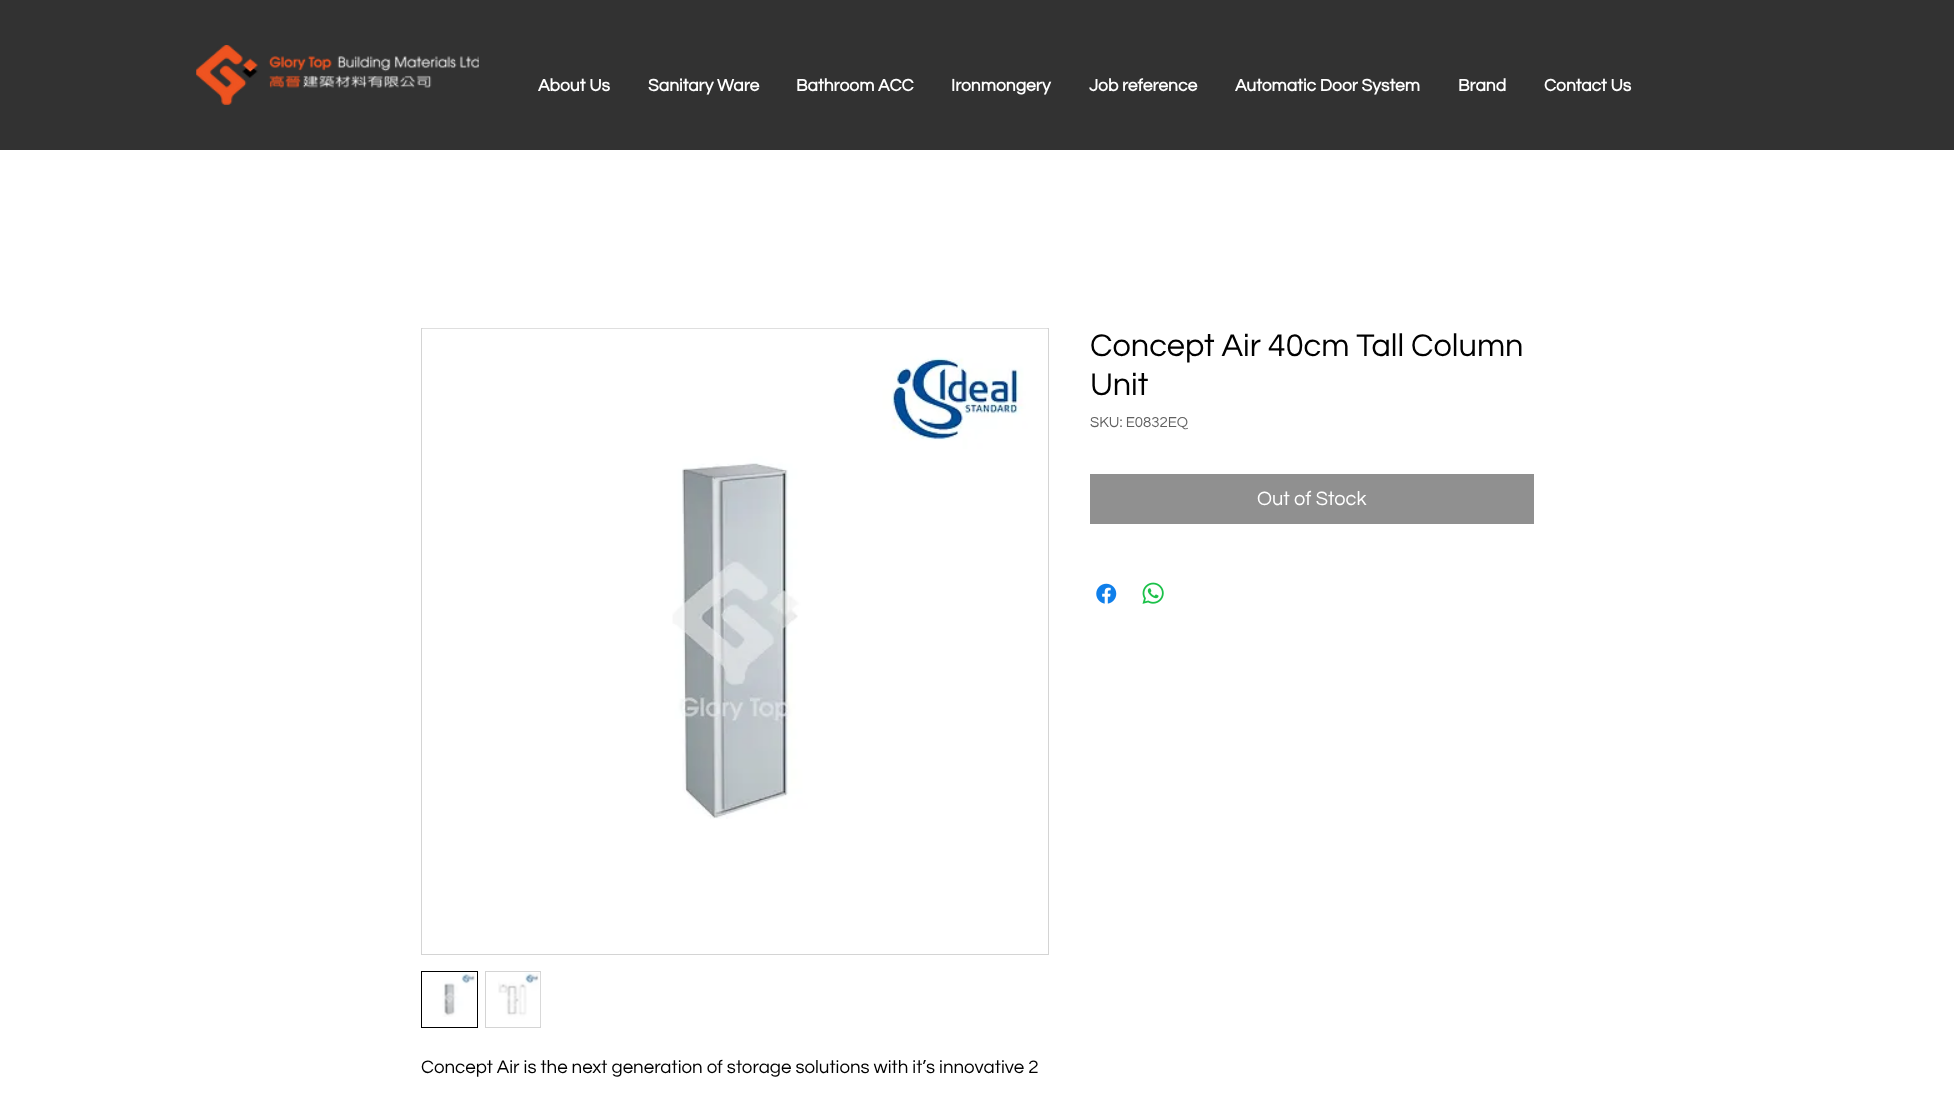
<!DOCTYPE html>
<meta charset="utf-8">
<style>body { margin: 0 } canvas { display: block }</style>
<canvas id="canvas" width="1954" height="1094"></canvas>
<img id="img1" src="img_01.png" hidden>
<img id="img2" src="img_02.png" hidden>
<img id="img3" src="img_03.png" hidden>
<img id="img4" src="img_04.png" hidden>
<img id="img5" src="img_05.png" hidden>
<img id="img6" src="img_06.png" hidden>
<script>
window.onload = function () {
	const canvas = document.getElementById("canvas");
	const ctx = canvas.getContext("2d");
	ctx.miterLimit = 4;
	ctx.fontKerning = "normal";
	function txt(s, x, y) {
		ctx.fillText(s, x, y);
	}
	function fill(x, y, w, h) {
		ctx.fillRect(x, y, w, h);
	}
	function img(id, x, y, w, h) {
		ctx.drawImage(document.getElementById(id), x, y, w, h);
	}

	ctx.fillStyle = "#FFFFFF";
	fill(0, 0, 1954, 1094);
	ctx.fillStyle = "#323232";
	fill(0, 0, 1954, 150);
	img("img1", 196, 45, 283, 60);
	ctx.fillStyle = "#909090";
	fill(1090, 474, 444, 50);
	img("img2", 1096, 583, 21, 21);
	img("img3", 1142, 582, 22, 22);
	ctx.strokeStyle = "#D4D4D4";
	ctx.strokeRect(421.5, 328.5, 627, 626);
	img("img4", 422, 328, 626, 491);
	ctx.strokeStyle = "#000000";
	ctx.strokeRect(421.5, 971.5, 56, 56);
	img("img5", 442, 972, 33, 45);
	ctx.strokeStyle = "#D4D4D4";
	ctx.strokeRect(485.5, 971.5, 55, 56);
	img("img6", 498, 972, 43, 54);
	ctx.font = "bold 17.5px Questrial";
	ctx.fillStyle = "#FFFFFF";
	txt("About Us", 538, 91);
	txt("Sanitary Ware", 648, 91);
	txt("Bathroom ACC", 796, 91);
	txt("Ironmongery", 951, 91);
	txt("Job reference", 1089, 91);
	txt("Automatic Door System", 1235, 91);
	txt("Brand", 1458, 91);
	txt("Contact Us", 1544, 91);
	ctx.font = "32.5px Questrial";
	ctx.fillStyle = "#000000";
	txt("Concept Air 40cm Tall Column", 1090, 356);
	txt("Unit", 1090, 395);
	ctx.font = "15px Questrial";
	ctx.fillStyle = "#606060";
	txt("SKU: E0832EQ", 1090, 427);
	ctx.font = "20px Questrial";
	ctx.fillStyle = "#FFFFFF";
	txt("Out of Stock", 1257, 505);
	ctx.font = "18.75px Questrial";
	ctx.fillStyle = "#000000";
	txt("Concept Air is the next generation of storage solutions with it’s innovative 2", 421, 1073);
};
</script>
